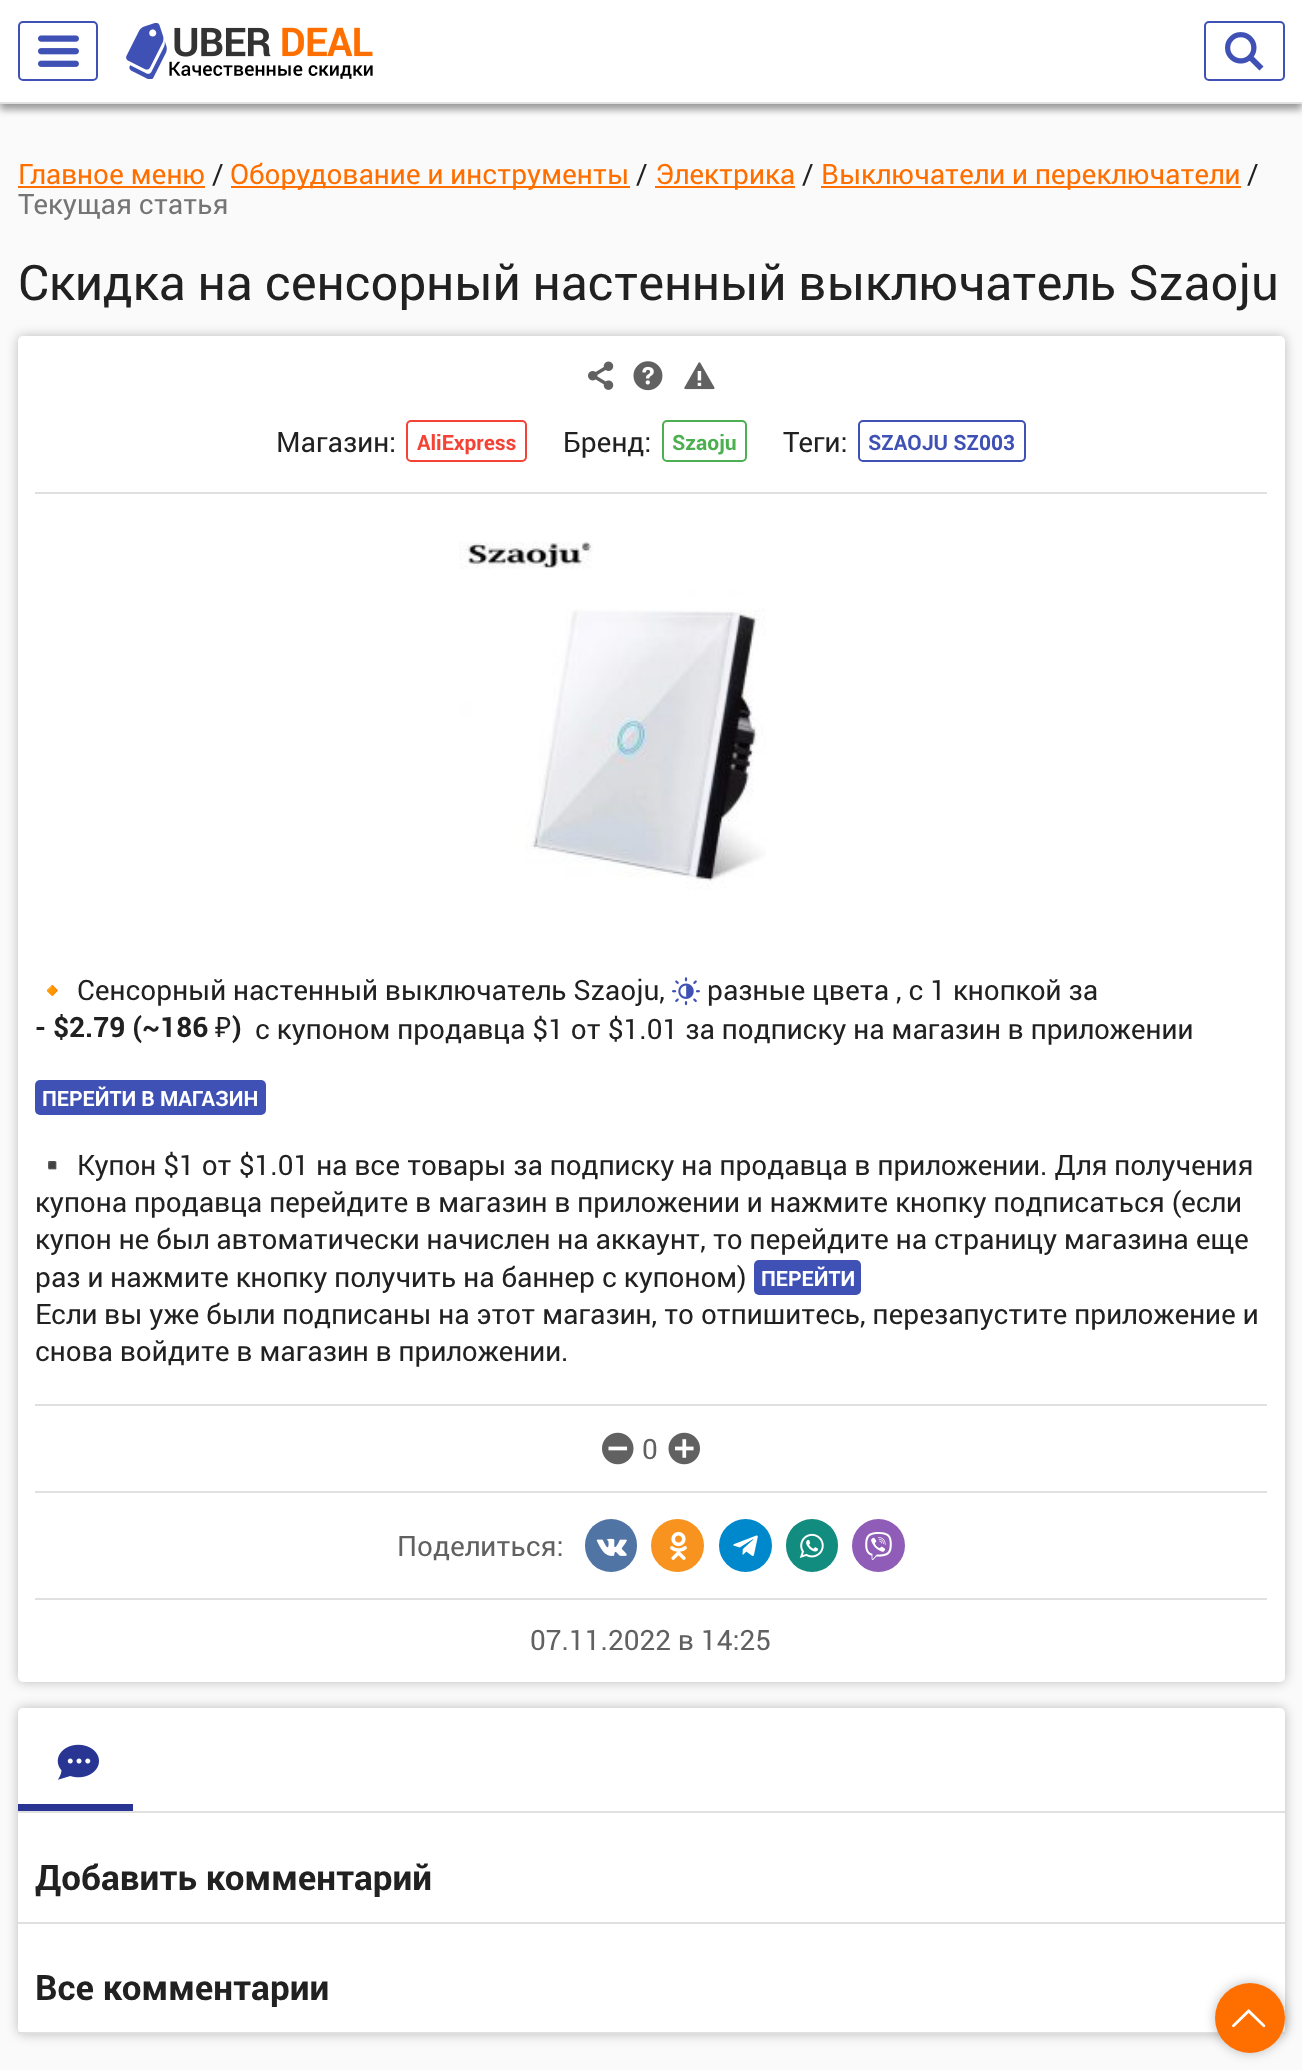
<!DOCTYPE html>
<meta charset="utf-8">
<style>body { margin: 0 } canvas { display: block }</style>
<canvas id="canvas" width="1302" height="2070"></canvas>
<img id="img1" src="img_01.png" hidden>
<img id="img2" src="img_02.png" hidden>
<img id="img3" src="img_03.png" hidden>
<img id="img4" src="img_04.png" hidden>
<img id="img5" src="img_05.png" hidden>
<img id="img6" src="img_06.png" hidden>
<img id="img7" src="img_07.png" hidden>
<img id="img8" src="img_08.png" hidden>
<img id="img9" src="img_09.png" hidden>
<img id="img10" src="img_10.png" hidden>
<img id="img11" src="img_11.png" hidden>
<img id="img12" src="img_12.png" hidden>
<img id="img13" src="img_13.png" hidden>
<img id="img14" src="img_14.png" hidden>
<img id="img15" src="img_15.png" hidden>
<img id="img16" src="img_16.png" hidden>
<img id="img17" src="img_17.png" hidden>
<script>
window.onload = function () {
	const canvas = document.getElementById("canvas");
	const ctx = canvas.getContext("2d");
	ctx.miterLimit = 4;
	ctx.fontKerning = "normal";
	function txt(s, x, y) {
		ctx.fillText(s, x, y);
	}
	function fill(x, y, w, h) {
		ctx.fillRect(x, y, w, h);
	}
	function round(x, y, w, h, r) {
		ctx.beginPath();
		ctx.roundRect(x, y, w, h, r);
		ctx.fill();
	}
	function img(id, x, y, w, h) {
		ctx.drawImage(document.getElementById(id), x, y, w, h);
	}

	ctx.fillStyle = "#FAFAFA";
	fill(0, 0, 1302, 2070);
	ctx.fillStyle = "rgba(0, 0, 0, 0.3)";
	ctx.filter = "blur(3.5px)";
	ctx.beginPath();
	ctx.rect(0, 7, 1302, 103);
	ctx.fill();
	ctx.filter = "none";
	ctx.fillStyle = "rgba(0, 0, 0, 0.25)";
	ctx.filter = "blur(6px)";
	ctx.beginPath();
	ctx.rect(0, 0, 1302, 103);
	ctx.fill();
	ctx.filter = "none";
	ctx.fillStyle = "#FFFFFF";
	fill(0, 0, 1302, 102);
	ctx.fillStyle = "#E0E0E0";
	fill(0, 102, 1302, 2);
	ctx.beginPath();
	ctx.roundRect(19, 22, 78, 58, 4);
	ctx.strokeStyle = "#3F51B5";
	ctx.lineWidth = 2;
	ctx.stroke();
	img("img1", 38, 35, 41, 32);
	img("img2", 126, 23, 247, 56);
	ctx.beginPath();
	ctx.roundRect(1205, 22, 79, 58, 4);
	ctx.stroke();
	img("img3", 1225, 32, 39, 39);
	ctx.fillStyle = "#FF6F00";
	fill(18, 186, 187, 2);
	fill(231, 186, 399, 2);
	fill(655, 186, 140, 2);
	fill(821, 186, 420, 2);
	ctx.fillStyle = "rgba(0, 0, 0, 0.25)";
	ctx.filter = "blur(6px)";
	ctx.beginPath();
	ctx.roundRect(18, 336, 1267, 1346, 5);
	ctx.fill();
	ctx.filter = "none";
	ctx.fillStyle = "#FFFFFF";
	round(18, 336, 1267, 1346, 5);
	ctx.fillStyle = "#E0E0E0";
	fill(35, 492, 1232, 2);
	img("img4", 588, 361, 26, 29);
	img("img5", 633, 361, 30, 30);
	img("img6", 684, 362, 31, 28);
	ctx.beginPath();
	ctx.roundRect(407, 421, 119, 40, 4);
	ctx.strokeStyle = "#F44336";
	ctx.stroke();
	ctx.beginPath();
	ctx.roundRect(663, 421, 83, 40, 4);
	ctx.strokeStyle = "#4CAF50";
	ctx.stroke();
	ctx.beginPath();
	ctx.roundRect(859, 421, 166, 40, 4);
	ctx.strokeStyle = "#3F51B5";
	ctx.stroke();
	img("img7", 459, 541, 307, 349);
	img("img8", 672, 977, 28, 29);
	ctx.fillStyle = "#3F51B5";
	round(35, 1080, 231, 35, 5);
	round(754, 1260, 107, 35, 5);
	ctx.fillStyle = "#E0E0E0";
	fill(35, 1404, 1232, 2);
	fill(35, 1491, 1232, 2);
	img("img9", 602, 1432, 32, 33);
	img("img10", 668, 1432, 32, 33);
	ctx.fillStyle = "#5074A4";
	round(585, 1519, 52, 53, 26);
	img("img11", 596, 1538, 31, 18);
	ctx.fillStyle = "#F7931E";
	ctx.beginPath();
	ctx.arc(677.5, 1545.5, 26.5, 0, Math.PI * 2);
	ctx.fill();
	img("img12", 670, 1531, 17, 29);
	ctx.fillStyle = "#0088CC";
	ctx.beginPath();
	ctx.arc(745.5, 1545.5, 26.5, 0, Math.PI * 2);
	ctx.fill();
	img("img13", 733, 1535, 25, 21);
	ctx.fillStyle = "#128C7E";
	round(786, 1519, 52, 53, 26);
	img("img14", 799, 1533, 25, 25);
	ctx.fillStyle = "#8F5DB7";
	ctx.beginPath();
	ctx.arc(878.5, 1545.5, 26.5, 0, Math.PI * 2);
	ctx.fill();
	img("img15", 865, 1531, 27, 29);
	ctx.fillStyle = "#E0E0E0";
	fill(35, 1598, 1232, 2);
	ctx.fillStyle = "rgba(0, 0, 0, 0.25)";
	ctx.filter = "blur(6px)";
	ctx.beginPath();
	ctx.roundRect(18, 1708, 1267, 326, 5);
	ctx.fill();
	ctx.filter = "none";
	ctx.fillStyle = "#FFFFFF";
	round(18, 1708, 1267, 326, 5);
	ctx.fillStyle = "#E0E0E0";
	fill(18, 1811, 1267, 2);
	img("img16", 57, 1744, 42, 36);
	ctx.fillStyle = "#283593";
	fill(18, 1804, 115, 7);
	ctx.fillStyle = "#E0E0E0";
	fill(18, 1922, 1267, 2);
	fill(18, 2032, 1267, 2);
	ctx.fillStyle = "rgba(0, 0, 0, 0.25)";
	ctx.filter = "blur(6px)";
	ctx.beginPath();
	ctx.roundRect(1215, 1983, 70, 70, 35);
	ctx.fill();
	ctx.filter = "none";
	ctx.fillStyle = "#FF6F00";
	ctx.beginPath();
	ctx.arc(1250, 2018, 35, 0, Math.PI * 2);
	ctx.fill();
	img("img17", 1232, 2009, 34, 19);
	ctx.font = "28px Roboto";
	txt("Главное меню", 18, 184);
	ctx.fillStyle = "#212121";
	txt("/", 212, 184);
	ctx.fillStyle = "#FF6F00";
	txt("Оборудование и инструменты", 230, 184);
	ctx.fillStyle = "#212121";
	txt("/", 636, 184);
	ctx.fillStyle = "#FF6F00";
	txt("Электрика", 655, 184);
	ctx.fillStyle = "#212121";
	txt("/", 802, 184);
	ctx.fillStyle = "#FF6F00";
	txt("Выключатели и переключатели", 821, 184);
	ctx.fillStyle = "#212121";
	txt("/", 1247, 184);
	ctx.fillStyle = "#757575";
	txt("Текущая статья", 18, 214);
	ctx.font = "49px Roboto";
	ctx.fillStyle = "#212121";
	txt("Скидка на сенсорный настенный выключатель Szaoju", 18, 300);
	ctx.font = "28px Roboto";
	txt("Магазин:", 276, 452);
	ctx.font = "bold 21px Roboto";
	ctx.fillStyle = "#F44336";
	txt("AliExpress", 417, 450);
	ctx.font = "28px Roboto";
	ctx.fillStyle = "#212121";
	txt("Бренд:", 563, 452);
	ctx.font = "bold 21px Roboto";
	ctx.fillStyle = "#4CAF50";
	txt("Szaoju", 672, 450);
	ctx.font = "28px Roboto";
	ctx.fillStyle = "#212121";
	txt("Теги:", 783, 452);
	ctx.font = "bold 21px Roboto";
	ctx.fillStyle = "#3F51B5";
	txt("SZAOJU SZ003", 868, 450);
	ctx.font = "28px Noto Color Emoji";
	ctx.fillStyle = "#212121";
	txt("🔸", 35, 1000);
	ctx.font = "28px Roboto";
	txt("Сенсорный настенный выключатель Szaoju,", 77, 1000);
	txt("разные цвета , с 1 кнопкой за", 707, 1000);
	ctx.font = "bold 28px Roboto";
	txt("- $2.79 (~186", 35, 1037);
	ctx.font = "28px Noto Sans";
	txt("₽", 215, 1037);
	ctx.font = "bold 28px Roboto";
	txt(")", 232, 1037);
	ctx.font = "28px Roboto";
	txt("с купоном продавца $1 от $1.01 за подписку на магазин в приложении", 255, 1039);
	ctx.font = "bold 21px Roboto";
	ctx.fillStyle = "#FFFFFF";
	txt("ПЕРЕЙТИ В МАГАЗИН", 42, 1106);
	ctx.font = "28px Noto Color Emoji";
	ctx.fillStyle = "#212121";
	txt("▪️", 35, 1175);
	ctx.font = "28px Roboto";
	txt("Купон $1 от $1.01 на все товары за подписку на продавца в приложении. Для получения", 77, 1175);
	txt("купона продавца перейдите в магазин в приложении и нажмите кнопку подписаться (если", 35, 1212);
	txt("купон не был автоматически начислен на аккаунт, то перейдите на страницу магазина еще", 35, 1249);
	txt("раз и нажмите кнопку получить на баннер с купоном)", 35, 1287);
	ctx.font = "bold 21px Roboto";
	ctx.fillStyle = "#FFFFFF";
	txt("ПЕРЕЙТИ", 761, 1286);
	ctx.font = "28px Roboto";
	ctx.fillStyle = "#212121";
	txt("Если вы уже были подписаны на этот магазин, то отпишитесь, перезапустите приложение и", 35, 1324);
	txt("снова войдите в магазин в приложении.", 35, 1361);
	ctx.fillStyle = "#616161";
	txt("0", 642, 1459);
	txt("Поделиться:", 397, 1556);
	txt("07.11.2022 в 14:25", 530, 1650);
	ctx.font = "bold 35px Roboto";
	ctx.fillStyle = "#212121";
	txt("Добавить комментарий", 35, 1890);
	txt("Все комментарии", 35, 2000);
};
</script>
